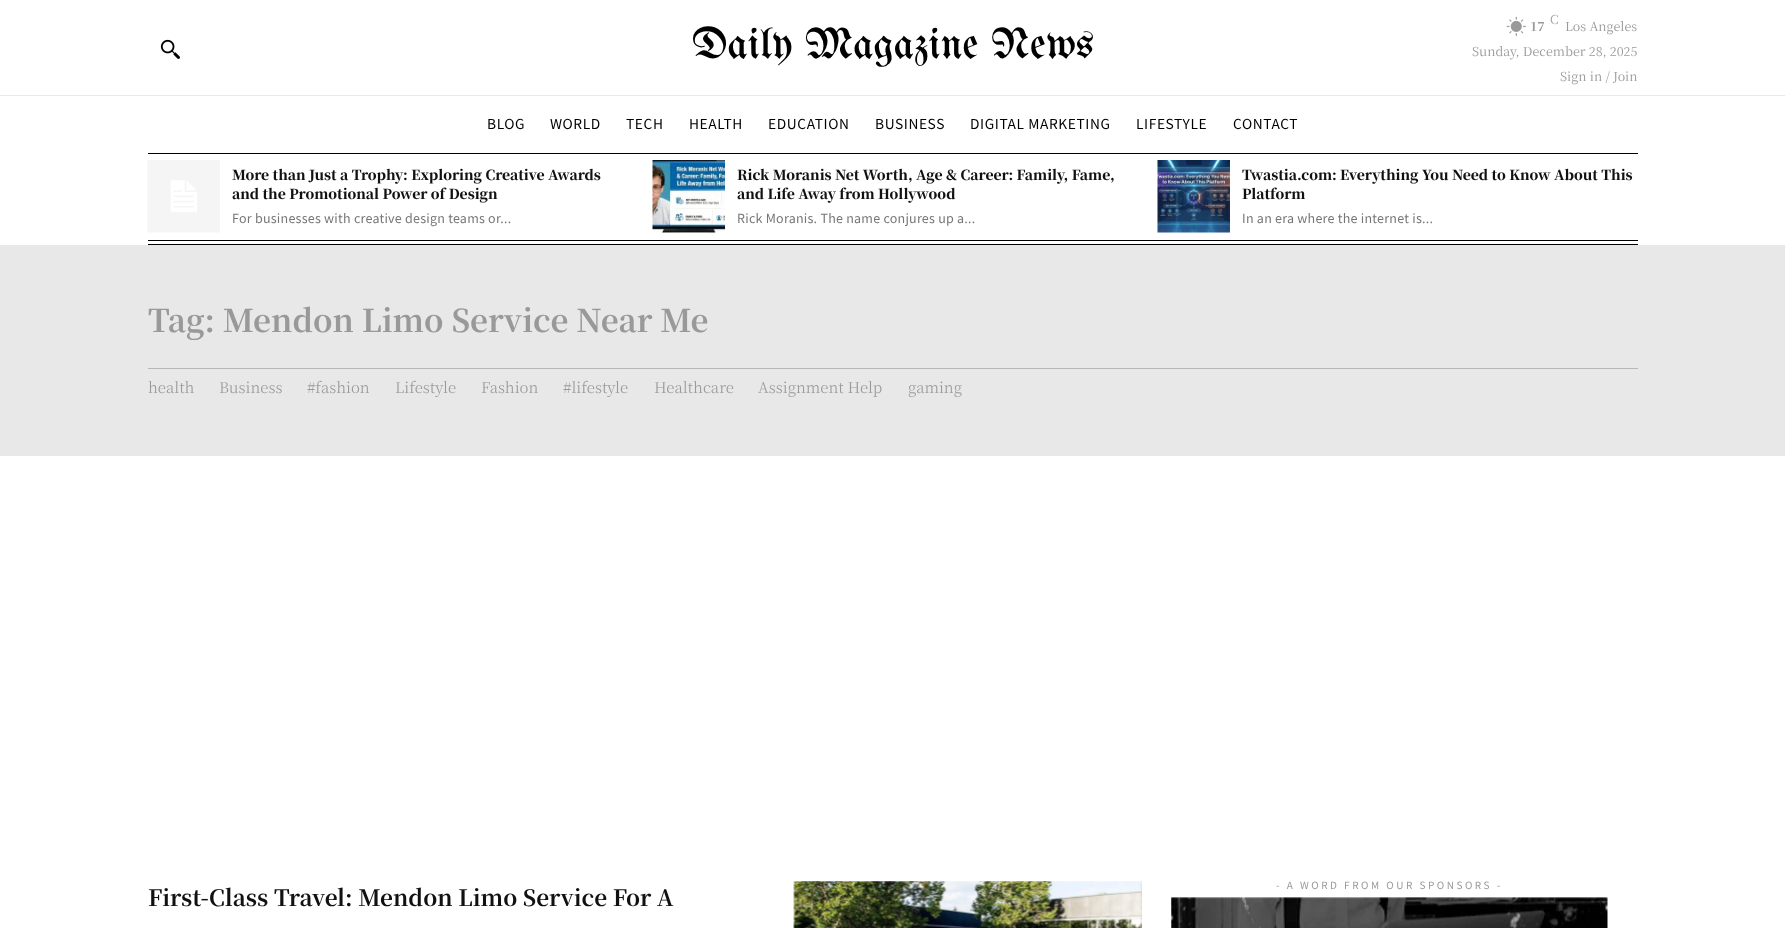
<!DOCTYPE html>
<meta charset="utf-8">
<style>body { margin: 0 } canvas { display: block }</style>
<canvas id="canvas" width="1785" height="928"></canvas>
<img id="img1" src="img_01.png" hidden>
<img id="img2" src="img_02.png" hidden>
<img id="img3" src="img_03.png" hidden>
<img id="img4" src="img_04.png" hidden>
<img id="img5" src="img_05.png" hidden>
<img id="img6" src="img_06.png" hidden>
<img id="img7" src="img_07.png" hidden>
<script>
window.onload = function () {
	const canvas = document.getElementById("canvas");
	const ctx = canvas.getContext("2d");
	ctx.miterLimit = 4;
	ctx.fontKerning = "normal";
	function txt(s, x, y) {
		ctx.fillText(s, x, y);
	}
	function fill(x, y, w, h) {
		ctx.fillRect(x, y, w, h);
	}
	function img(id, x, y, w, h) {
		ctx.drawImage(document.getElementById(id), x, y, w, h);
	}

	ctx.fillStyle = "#FFFFFF";
	fill(0, 0, 1785, 928);
	img("img1", 160, 39, 20, 20);
	img("img2", 1506, 16, 20, 20);
	ctx.fillStyle = "#E8E8E8";
	fill(0, 95, 1785, 1);
	ctx.fillStyle = "#000000";
	fill(148, 153, 1490, 1);
	fill(148, 244, 1490, 1);
	img("img3", 147, 160, 73, 73);
	img("img4", 652, 160, 73, 73);
	img("img5", 1157, 160, 73, 73);
	fill(148, 240, 1490, 1);
	ctx.fillStyle = "#E8E8E8";
	fill(0, 245, 1785, 211);
	ctx.fillStyle = "#B7B7B7";
	fill(148, 368, 1490, 1);
	img("img6", 1171, 897, 437, 31);
	img("img7", 793, 881, 349, 47);
	ctx.font = "43.75px UnifrakturMaguntia";
	ctx.fillStyle = "#000000";
	txt("Daily Magazine News", 692, 58);
	ctx.font = "300 12.5px Noto Serif JP";
	ctx.fillStyle = "#999999";
	txt("C", 1550, 24);
	ctx.font = "bold 12.5px Noto Serif JP";
	txt("17", 1530, 31);
	ctx.font = "12.5px Noto Serif JP";
	txt("Los Angeles", 1565, 31);
	txt("Sunday, December 28, 2025", 1472, 56);
	txt("Sign in / Join", 1560, 81);
	ctx.letterSpacing = "0.6px";
	ctx.font = "100 13.75px Noto Sans JP";
	ctx.fillStyle = "#000000";
	txt("BLOG", 487, 129);
	txt("WORLD", 550, 129);
	txt("TECH", 626, 129);
	txt("HEALTH", 689, 129);
	txt("EDUCATION", 768, 129);
	txt("BUSINESS", 875, 129);
	txt("DIGITAL MARKETING", 970, 129);
	txt("LIFESTYLE", 1136, 129);
	txt("CONTACT", 1233, 129);
	ctx.letterSpacing = "0px";
	ctx.font = "900 13.75px Noto Serif JP";
	ctx.fillStyle = "#111111";
	txt("More than Just a Trophy: Exploring Creative Awards", 232, 180);
	txt("and the Promotional Power of Design", 232, 199);
	ctx.letterSpacing = "0.25px";
	ctx.font = "100 12.5px Noto Sans JP";
	ctx.fillStyle = "#767676";
	txt("For businesses with creative design teams or...", 232, 223);
	ctx.letterSpacing = "0px";
	ctx.font = "900 13.75px Noto Serif JP";
	ctx.fillStyle = "#111111";
	txt("Rick Moranis Net Worth, Age & Career: Family, Fame,", 737, 180);
	txt("and Life Away from Hollywood", 737, 199);
	ctx.letterSpacing = "0.25px";
	ctx.font = "100 12.5px Noto Sans JP";
	ctx.fillStyle = "#767676";
	txt("Rick Moranis. The name conjures up a...", 737, 223);
	ctx.letterSpacing = "0px";
	ctx.font = "900 13.75px Noto Serif JP";
	ctx.fillStyle = "#111111";
	txt("Twastia.com: Everything You Need to Know About This", 1242, 180);
	txt("Platform", 1242, 199);
	ctx.letterSpacing = "0.25px";
	ctx.font = "100 12.5px Noto Sans JP";
	ctx.fillStyle = "#767676";
	txt("In an era where the internet is...", 1242, 223);
	ctx.letterSpacing = "0px";
	ctx.font = "bold 31.25px Noto Serif JP";
	ctx.fillStyle = "#999999";
	txt("Tag: Mendon Limo Service Near Me", 148, 332);
	ctx.font = "300 15px Noto Serif JP";
	txt("health", 148, 393);
	txt("Business", 219, 393);
	txt("#fashion", 307, 393);
	txt("Lifestyle", 395, 393);
	txt("Fashion", 481, 393);
	txt("#lifestyle", 563, 393);
	txt("Healthcare", 654, 393);
	txt("Assignment Help", 758, 393);
	txt("gaming", 908, 393);
	ctx.letterSpacing = "2.5px";
	ctx.font = "100 10px Noto Sans JP";
	txt("- A WORD FROM OUR SPONSORS -", 1276, 889);
	ctx.letterSpacing = "0px";
	ctx.font = "bold 22.5px Noto Serif JP";
	ctx.fillStyle = "#111111";
	txt("First-Class Travel: Mendon Limo Service For A", 148, 906);
};
</script>
